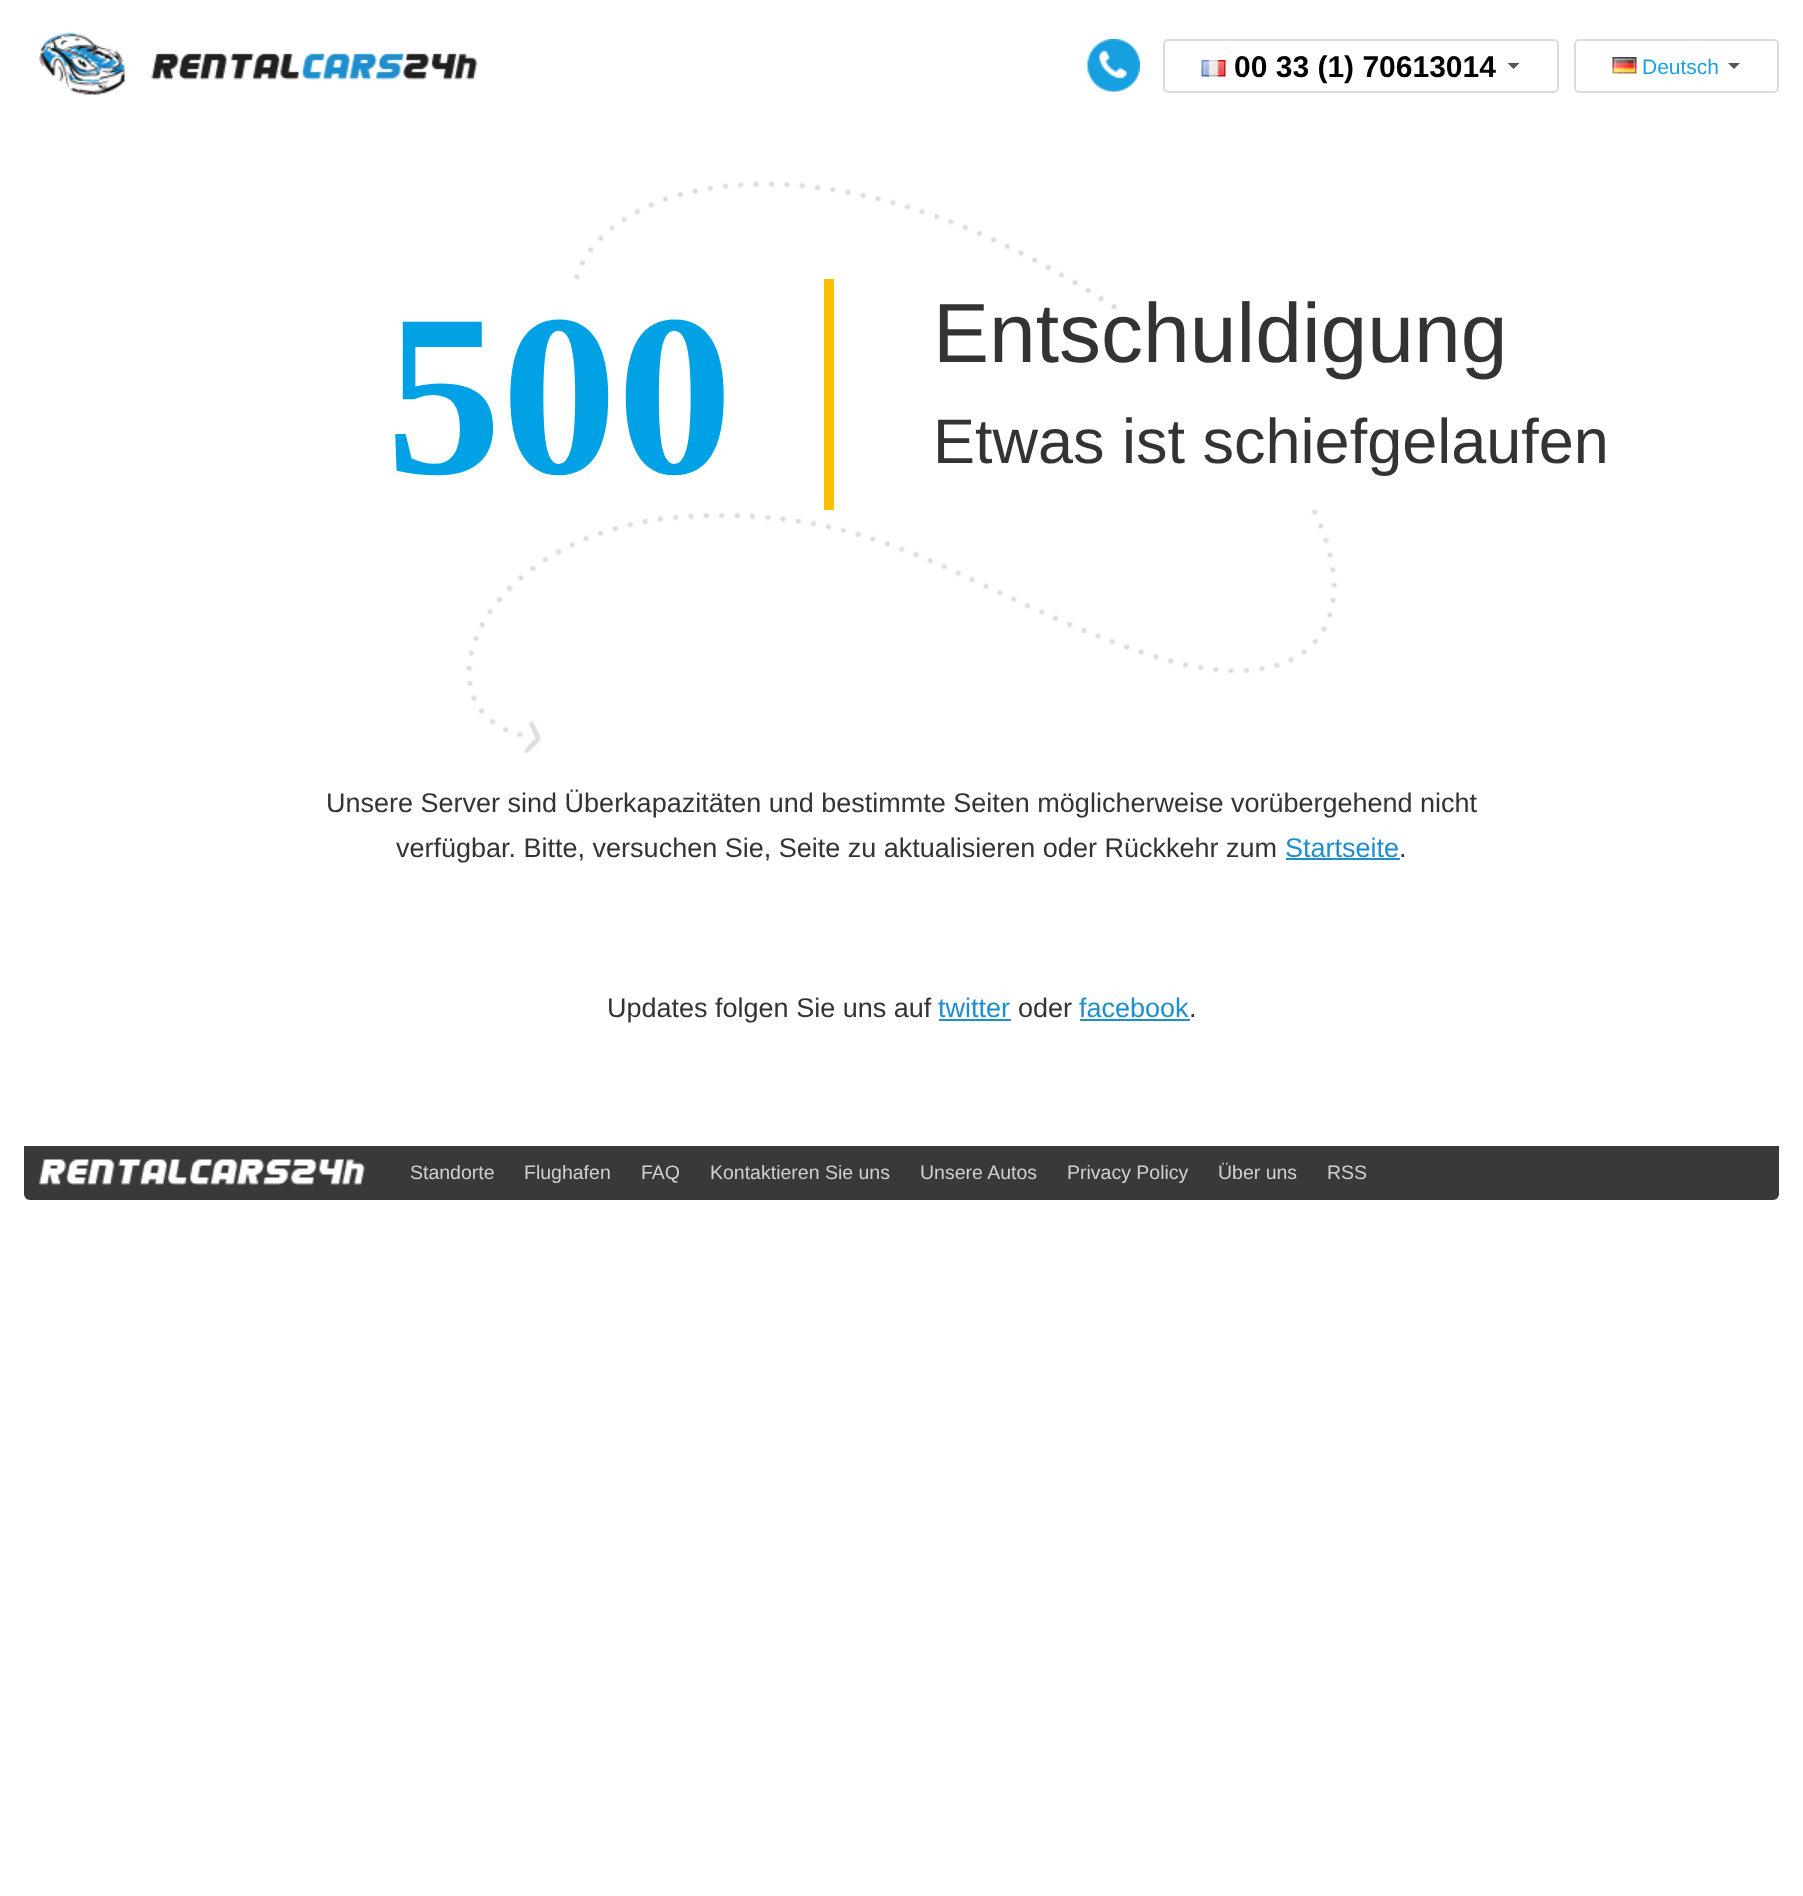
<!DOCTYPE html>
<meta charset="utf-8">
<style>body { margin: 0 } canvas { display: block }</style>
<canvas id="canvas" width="1803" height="1896"></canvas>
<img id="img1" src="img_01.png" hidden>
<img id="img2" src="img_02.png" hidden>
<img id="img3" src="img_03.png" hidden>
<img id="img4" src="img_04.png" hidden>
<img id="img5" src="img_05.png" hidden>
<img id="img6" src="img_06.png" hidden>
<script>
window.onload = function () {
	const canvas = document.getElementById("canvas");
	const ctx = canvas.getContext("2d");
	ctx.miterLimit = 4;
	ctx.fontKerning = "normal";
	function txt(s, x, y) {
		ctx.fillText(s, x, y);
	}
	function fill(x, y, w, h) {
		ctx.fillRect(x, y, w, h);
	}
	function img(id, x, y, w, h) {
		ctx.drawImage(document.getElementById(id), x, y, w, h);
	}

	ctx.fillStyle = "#FFFFFF";
	fill(0, 0, 1803, 1896);
	img("img1", 39, 32, 439, 63);
	img("img2", 1087, 39, 53, 53);
	ctx.beginPath();
	ctx.roundRect(1164, 40, 394, 52, 4);
	ctx.strokeStyle = "#DCDCDC";
	ctx.lineWidth = 2;
	ctx.stroke();
	img("img3", 1201, 60, 25, 17);
	ctx.fillStyle = "#555555";
	ctx.beginPath();
	ctx.moveTo(1507.5, 63);
	ctx.lineTo(1519.5, 63);
	ctx.lineTo(1513.5, 69);
	ctx.closePath();
	ctx.fill();
	ctx.beginPath();
	ctx.roundRect(1575, 40, 203, 52, 4);
	ctx.stroke();
	img("img4", 1612, 57, 25, 17);
	ctx.beginPath();
	ctx.moveTo(1728, 63);
	ctx.lineTo(1740, 63);
	ctx.lineTo(1734, 69);
	ctx.closePath();
	ctx.fill();
	img("img5", 466, 181, 871, 572);
	ctx.fillStyle = "#FAC000";
	fill(824, 279, 10, 231);
	ctx.fillStyle = "#1E8ECD";
	fill(1286, 858, 114, 2);
	fill(939, 1019, 72, 2);
	fill(1080, 1019, 110, 2);
	ctx.fillStyle = "#393939";
	ctx.beginPath();
	ctx.roundRect(24, 1146, 1755, 54, [0, 0, 6, 6]);
	ctx.fill();
	img("img6", 39, 1159, 326, 26);
	ctx.font = "bold 30px Liberation Sans";
	ctx.fillStyle = "#000000";
	txt("00 33 (1) 70613014", 1234, 77);
	ctx.font = "21px Liberation Sans";
	ctx.fillStyle = "#1BA1E2";
	txt("Deutsch", 1642, 74);
	ctx.font = "bold 231px Liberation Serif";
	ctx.fillStyle = "#00A2E5";
	txt("500", 386, 473);
	ctx.font = "84px Liberation Sans";
	ctx.fillStyle = "#333333";
	txt("Entschuldigung", 933, 362);
	ctx.font = "63px Liberation Sans";
	txt("Etwas ist schiefgelaufen", 933, 463);
	ctx.font = "27px Liberation Sans";
	txt("Unsere Server sind Überkapazitäten und bestimmte Seiten möglicherweise vorübergehend nicht", 326, 812);
	txt("verfügbar. Bitte, versuchen Sie, Seite zu aktualisieren oder Rückkehr zum", 396, 857);
	ctx.fillStyle = "#1E8ECD";
	txt("Startseite", 1285, 857);
	ctx.fillStyle = "#333333";
	txt(".", 1399, 857);
	txt("Updates folgen Sie uns auf", 607, 1017);
	ctx.fillStyle = "#1E8ECD";
	txt("twitter", 938, 1017);
	ctx.fillStyle = "#333333";
	txt("oder", 1018, 1017);
	ctx.fillStyle = "#1E8ECD";
	txt("facebook", 1079, 1017);
	ctx.fillStyle = "#333333";
	txt(".", 1189, 1017);
	ctx.font = "19.5px Liberation Sans";
	ctx.fillStyle = "#D0D0D0";
	txt("Standorte", 410, 1179);
	txt("Flughafen", 524, 1179);
	txt("FAQ", 641, 1179);
	txt("Kontaktieren Sie uns", 710, 1179);
	txt("Unsere Autos", 920, 1179);
	txt("Privacy Policy", 1067, 1179);
	txt("Über uns", 1218, 1179);
	txt("RSS", 1327, 1179);
};
</script>
